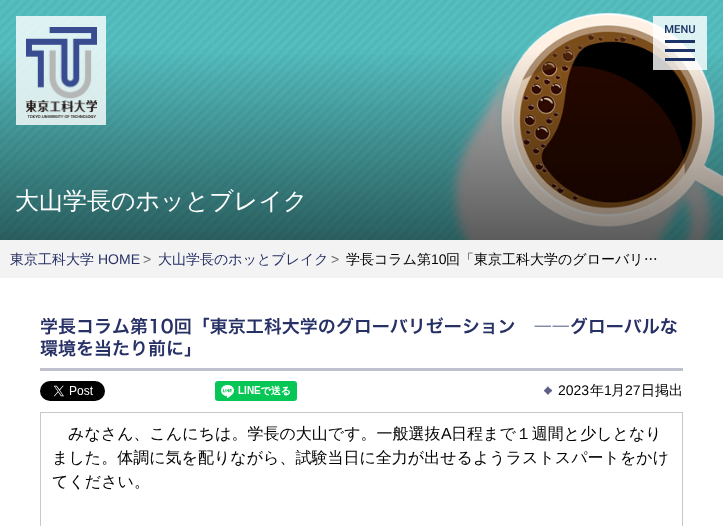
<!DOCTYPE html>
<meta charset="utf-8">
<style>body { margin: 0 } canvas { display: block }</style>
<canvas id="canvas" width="723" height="526"></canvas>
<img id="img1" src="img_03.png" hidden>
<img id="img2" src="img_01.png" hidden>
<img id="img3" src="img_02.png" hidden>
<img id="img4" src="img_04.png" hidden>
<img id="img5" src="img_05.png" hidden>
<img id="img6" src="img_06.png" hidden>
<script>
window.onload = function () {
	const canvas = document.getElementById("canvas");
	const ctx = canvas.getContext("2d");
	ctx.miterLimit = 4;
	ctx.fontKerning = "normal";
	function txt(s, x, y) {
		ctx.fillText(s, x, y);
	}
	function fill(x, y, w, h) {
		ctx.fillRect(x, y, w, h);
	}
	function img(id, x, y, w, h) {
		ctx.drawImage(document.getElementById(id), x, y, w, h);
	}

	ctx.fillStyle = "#FFFFFF";
	fill(0, 0, 723, 526);
	img("img1", 0, 0, 723, 240);
	ctx.fillStyle = "rgba(255, 255, 255, 0.8)";
	fill(16, 16, 90, 109);
	img("img2", 26, 27, 71, 91);
	fill(653, 16, 54, 54);
	img("img3", 665, 25, 30, 36);
	ctx.fillStyle = "#F3F3F3";
	fill(0, 240, 723, 38);
	ctx.fillStyle = "#BFC2CE";
	fill(40, 368, 643, 3);
	img("img4", 40, 381, 65, 20);
	img("img5", 215, 381, 82, 20);
	img("img6", 544, 386, 8, 9);
	ctx.strokeStyle = "#C5C9CE";
	ctx.strokeRect(40.5, 412.5, 642, 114);
	ctx.font = "500 24px WenQuanYi Zen Hei";
	ctx.fillStyle = "#FFFFFF";
	txt("大山学長のホッとブレイク", 15, 209);
	ctx.font = "500 14px WenQuanYi Zen Hei";
	ctx.fillStyle = "#273166";
	txt("東京工科大学", 10, 264);
	ctx.font = "14px Liberation Sans";
	txt("HOME", 98, 264);
	ctx.fillStyle = "#666666";
	txt(">", 143, 264);
	ctx.font = "500 14px WenQuanYi Zen Hei";
	ctx.fillStyle = "#273166";
	txt("大山学長のホッとブレイク", 158, 264);
	ctx.font = "14px Liberation Sans";
	ctx.fillStyle = "#666666";
	txt(">", 331, 264);
	ctx.font = "500 14px WenQuanYi Zen Hei";
	ctx.fillStyle = "#000000";
	txt("学長コラム第", 346, 264);
	ctx.font = "14px Liberation Sans";
	txt("10", 431, 264);
	ctx.font = "500 14px WenQuanYi Zen Hei";
	txt("回「東京工科大学のグローバリ…", 446, 264);
	ctx.font = "600 18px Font";
	ctx.fillStyle = "#273166";
	txt("学長コラム第10回「東京工科大学のグローバリゼーション　――グローバルな", 40, 333);
	txt("環境を当たり前に」", 40, 355);
	ctx.font = "14px Liberation Sans";
	ctx.fillStyle = "#000000";
	txt("2023", 558, 395);
	ctx.font = "500 14px WenQuanYi Zen Hei";
	txt("年", 590, 395);
	ctx.font = "14px Liberation Sans";
	txt("1", 604, 395);
	ctx.font = "500 14px WenQuanYi Zen Hei";
	txt("月", 611, 395);
	ctx.font = "14px Liberation Sans";
	txt("27", 625, 395);
	ctx.font = "500 14px WenQuanYi Zen Hei";
	txt("日掲出", 641, 395);
	ctx.font = "500 16px WenQuanYi Zen Hei";
	txt("みなさん、こんにちは。学長の大山です。一般選抜", 68, 439);
	ctx.font = "16px Liberation Sans";
	txt("A", 441, 439);
	ctx.font = "500 16px WenQuanYi Zen Hei";
	txt("日程まで１週間と少しとなり", 451, 439);
	txt("ました。体調に気を配りながら、試験当日に全力が出せるようラストスパートをかけ", 52, 463);
	txt("てください。", 52, 487);
};
</script>
